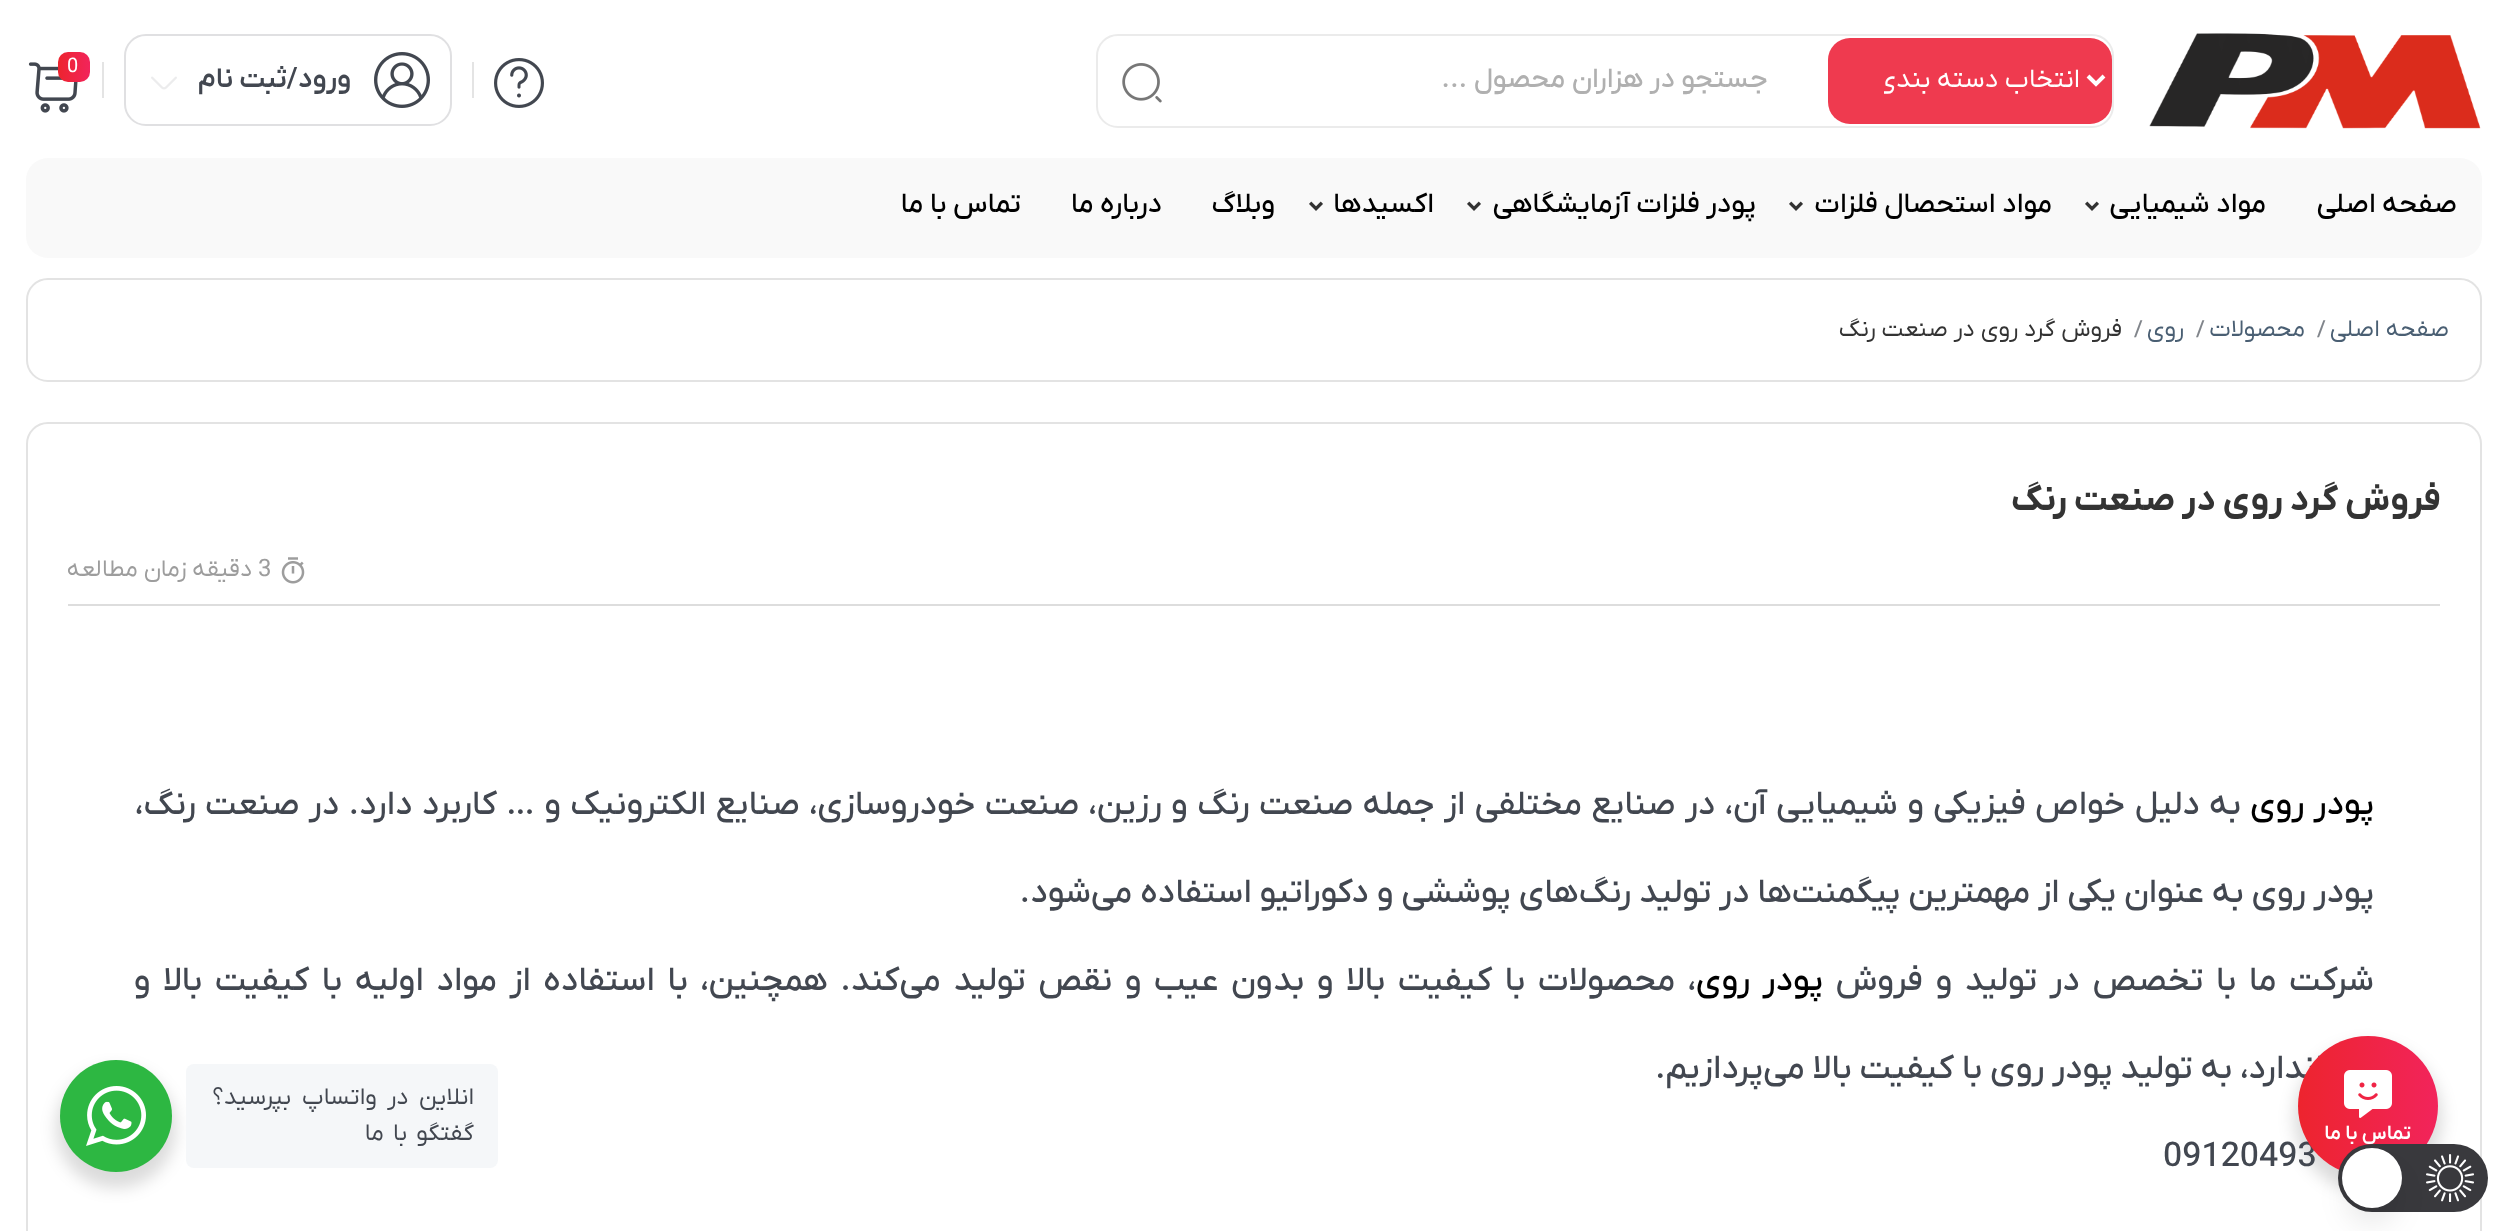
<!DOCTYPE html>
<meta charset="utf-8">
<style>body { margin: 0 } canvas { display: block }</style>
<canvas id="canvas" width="2508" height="1231"></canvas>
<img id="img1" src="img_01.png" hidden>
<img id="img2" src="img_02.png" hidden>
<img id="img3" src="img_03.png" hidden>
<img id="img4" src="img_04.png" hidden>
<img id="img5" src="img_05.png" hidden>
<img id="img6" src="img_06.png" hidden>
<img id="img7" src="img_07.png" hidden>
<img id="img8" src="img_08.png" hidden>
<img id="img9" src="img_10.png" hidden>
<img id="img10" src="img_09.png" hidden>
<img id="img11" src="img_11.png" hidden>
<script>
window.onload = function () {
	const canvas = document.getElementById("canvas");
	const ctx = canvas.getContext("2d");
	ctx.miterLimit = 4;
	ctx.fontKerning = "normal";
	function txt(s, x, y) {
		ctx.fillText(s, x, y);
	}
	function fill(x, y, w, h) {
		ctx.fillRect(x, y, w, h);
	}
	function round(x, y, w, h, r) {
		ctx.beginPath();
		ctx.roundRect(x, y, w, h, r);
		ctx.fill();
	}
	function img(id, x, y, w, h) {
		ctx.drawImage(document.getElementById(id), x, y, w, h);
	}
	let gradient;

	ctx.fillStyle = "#FFFFFF";
	fill(0, 0, 2508, 1231);
	img("img1", 2149, 33, 332, 96);
	ctx.beginPath();
	ctx.roundRect(1097, 35, 1016, 92, 21);
	ctx.strokeStyle = "#EBEBEB";
	ctx.lineWidth = 2;
	ctx.stroke();
	ctx.fillStyle = "#EF3A4F";
	round(1828, 38, 284, 86, 22);
	ctx.beginPath();
	ctx.moveTo(2088, 76);
	ctx.lineTo(2096, 84);
	ctx.lineTo(2104, 76);
	ctx.strokeStyle = "#FFFFFF";
	ctx.lineWidth = 4;
	ctx.stroke();
	img("img2", 1122, 63, 40, 40);
	img("img3", 494, 58, 50, 50);
	ctx.fillStyle = "#E4E4E4";
	fill(472, 62, 2, 36);
	ctx.beginPath();
	ctx.roundRect(125, 35, 326, 90, 21);
	ctx.strokeStyle = "#E0E0E2";
	ctx.lineWidth = 2;
	ctx.stroke();
	img("img4", 374, 52, 56, 56);
	img("img5", 151, 76, 26, 14);
	fill(102, 62, 2, 36);
	img("img6", 28, 62, 50, 51);
	gradient = ctx.createLinearGradient(58, 67, 90, 67);
	gradient.addColorStop(0, "#ED242E");
	gradient.addColorStop(1, "#F2245B");
	ctx.fillStyle = gradient;
	round(58, 52, 32, 30, 10);
	ctx.fillStyle = "#F9F9F9";
	round(26, 158, 2456, 100, 22);
	img("img7", 2085, 201, 14, 10);
	img("img7", 1789, 201, 14, 10);
	img("img7", 1467, 201, 14, 10);
	img("img7", 1309, 201, 14, 10);
	ctx.beginPath();
	ctx.roundRect(27, 279, 2454, 102, 21);
	ctx.strokeStyle = "#E3E3E3";
	ctx.stroke();
	ctx.beginPath();
	ctx.roundRect(27, 423, 2454, 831, 21);
	ctx.stroke();
	ctx.fillStyle = "#DDDDDD";
	fill(68, 604, 2372, 2);
	img("img8", 281, 557, 24, 27);
	ctx.fillStyle = "rgba(0, 0, 0, 0.14)";
	ctx.filter = "blur(8px)";
	ctx.beginPath();
	ctx.roundRect(2294, 1044, 148, 148, 74);
	ctx.fill();
	ctx.filter = "none";
	ctx.filter = "blur(8px)";
	ctx.beginPath();
	ctx.roundRect(56, 1068, 120, 120, 60);
	ctx.fill();
	ctx.filter = "none";
	ctx.fillStyle = "#F5F7F9";
	round(186, 1064, 312, 104, 8);
	ctx.fillStyle = "#2DB742";
	ctx.beginPath();
	ctx.arc(116, 1116, 56, 0, Math.PI * 2);
	ctx.fill();
	img("img9", 86, 1086, 60, 60);
	ctx.save();
	ctx.beginPath();
	ctx.rect(1884, 62, 196, 38);
	ctx.clip();
	ctx.direction = "rtl";
	ctx.font = "26.75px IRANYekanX";
	ctx.fillStyle = "#FFFFFF";
	txt("انتخاب دسته بندی", 2080, 87);
	ctx.restore();
	ctx.direction = "rtl";
	ctx.font = "500 28px IRANYekanX";
	ctx.fillStyle = "#B0B0B0";
	txt("جستجو در هزاران محصول ...", 1768, 87);
	ctx.font = "600 28px IRANYekanX";
	ctx.fillStyle = "#424750";
	txt("ورود/ثبت نام", 351, 87);
	ctx.direction = "ltr";
	ctx.font = "20px IRANYekanX";
	ctx.fillStyle = "#FFFFFF";
	txt("0", 67, 72);
	ctx.direction = "rtl";
	ctx.font = "500 28px IRANYekanX";
	ctx.fillStyle = "#000000";
	txt("صفحه اصلی", 2457, 212);
	txt("مواد شیمیایی", 2266, 212);
	txt("مواد استحصال فلزات", 2052, 212);
	txt("پودر فلزات آزمایشگاهی", 1756, 212);
	txt("اکسیدها", 1434, 212);
	txt("وبلاگ", 1275, 212);
	txt("درباره ما", 1162, 212);
	txt("تماس با ما", 1021, 212);
	ctx.font = "24px IRANYekanX";
	ctx.fillStyle = "#4A5F73";
	txt("صفحه اصلی", 2449, 336);
	ctx.direction = "ltr";
	ctx.font = "500 22px IRANYekanX";
	ctx.fillStyle = "#81858B";
	txt("/", 2317, 336);
	ctx.direction = "rtl";
	ctx.font = "24px IRANYekanX";
	ctx.fillStyle = "#4A5F73";
	txt("محصولات", 2305, 336);
	ctx.direction = "ltr";
	ctx.font = "500 22px IRANYekanX";
	ctx.fillStyle = "#81858B";
	txt("/", 2196, 336);
	ctx.direction = "rtl";
	ctx.font = "24px IRANYekanX";
	ctx.fillStyle = "#4A5F73";
	txt("روی", 2184, 336);
	ctx.direction = "ltr";
	ctx.font = "500 22px IRANYekanX";
	ctx.fillStyle = "#81858B";
	txt("/", 2134, 336);
	ctx.direction = "rtl";
	ctx.font = "24px IRANYekanX";
	ctx.fillStyle = "#333333";
	txt("فروش گرد روی در صنعت رنگ", 2122, 336);
	ctx.font = "bold 36px IRANYekanX";
	txt("فروش گرد روی در صنعت رنگ", 2441, 510);
	ctx.direction = "ltr";
	ctx.font = "24px IRANYekanX";
	ctx.fillStyle = "#9D9D9D";
	txt("3", 258, 576);
	ctx.direction = "rtl";
	txt("دقیقه زمان مطالعه", 252, 576);
	ctx.wordSpacing = "1.5px";
	ctx.font = "500 34px IRANYekanX";
	ctx.fillStyle = "#000000";
	txt("پودر روی", 2374, 814);
	ctx.fillStyle = "#424750";
	txt("به دلیل خواص فیزیکی و شیمیایی آن، در صنایع مختلفی از جمله صنعت رنگ و رزین، صنعت خودروسازی، صنایع الکترونیک و … کاربرد دارد. در صنعت رنگ،", 2241, 814);
	ctx.wordSpacing = "0px";
	txt("پودر روی به عنوان یکی از مهمترین پیگمنت‌ها در تولید رنگ‌های پوششی و دکوراتیو استفاده می‌شود.", 2374, 902);
	ctx.wordSpacing = "4.7px";
	txt("شرکت ما با تخصص در تولید و فروش", 2374, 990);
	ctx.fillStyle = "#000000";
	txt("پودر روی", 1823, 990);
	ctx.fillStyle = "#424750";
	txt("، محصولات با کیفیت بالا و بدون عیب و نقص تولید می‌کند. همچنین، با استفاده از مواد اولیه با کیفیت بالا و", 1696, 990);
	ctx.wordSpacing = "0px";
	txt("استاندارد، به تولید پودر روی با کیفیت بالا می‌پردازیم.", 2374, 1078);
	ctx.direction = "ltr";
	txt("09120493", 2163, 1166);
	gradient = ctx.createLinearGradient(2298, 1106, 2438, 1106);
	gradient.addColorStop(0, "#ED242E");
	gradient.addColorStop(1, "#F2245B");
	ctx.fillStyle = gradient;
	ctx.beginPath();
	ctx.arc(2368, 1106, 70, 0, Math.PI * 2);
	ctx.fill();
	img("img10", 2344, 1070, 48, 48);
	ctx.direction = "rtl";
	ctx.font = "600 20px IRANYekanX";
	ctx.fillStyle = "#FFFFFF";
	txt("تماس با ما", 2411, 1139);
	ctx.letterSpacing = "-0.75px";
	ctx.wordSpacing = "5.5px";
	ctx.font = "24px IRANYekanX";
	ctx.fillStyle = "#424750";
	txt("انلاین در واتساپ بپرسید؟", 474, 1104);
	ctx.wordSpacing = "4px";
	txt("گفتگو با ما", 474, 1140);
	ctx.fillStyle = "#39393D";
	round(2338, 1144, 150, 68, 34);
	img("img11", 2426, 1154, 48, 48);
	ctx.fillStyle = "rgba(0, 0, 0, 0.1)";
	ctx.filter = "blur(15px)";
	ctx.beginPath();
	ctx.roundRect(2348, 1174, 48, 48, 24);
	ctx.fill();
	ctx.filter = "none";
	ctx.fillStyle = "#FFFFFF";
	ctx.beginPath();
	ctx.arc(2372, 1178, 30, 0, Math.PI * 2);
	ctx.fill();
};
</script>
